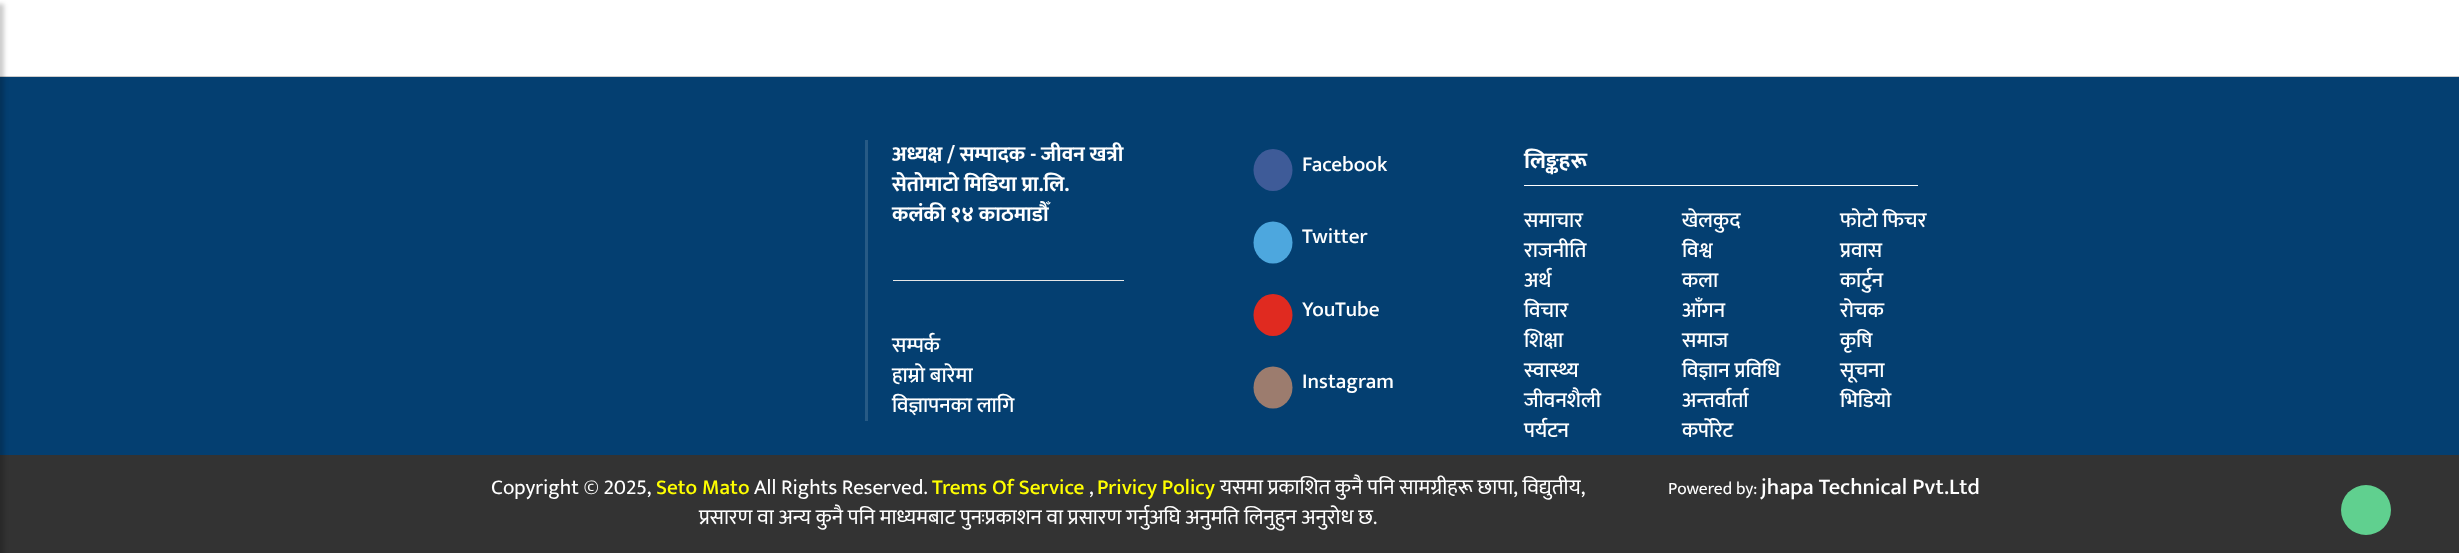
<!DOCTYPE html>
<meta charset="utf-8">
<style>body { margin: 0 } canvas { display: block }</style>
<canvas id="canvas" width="2459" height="553"></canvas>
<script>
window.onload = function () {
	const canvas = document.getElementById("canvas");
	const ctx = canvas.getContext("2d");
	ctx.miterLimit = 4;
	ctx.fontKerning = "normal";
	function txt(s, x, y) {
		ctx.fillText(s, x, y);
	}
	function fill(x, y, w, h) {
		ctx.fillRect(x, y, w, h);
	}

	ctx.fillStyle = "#FFFFFF";
	fill(0, 0, 2459, 553);
	ctx.fillStyle = "#043F71";
	fill(0, 77, 2459, 378);
	ctx.fillStyle = "#CCCCCC";
	fill(0, 76, 2459, 1);
	ctx.fillStyle = "#333333";
	fill(0, 455, 2459, 98);
	ctx.fillStyle = "rgba(0, 0, 0, 0.2)";
	ctx.filter = "blur(2px)";
	ctx.beginPath();
	ctx.rect(-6, 4, 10, 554);
	ctx.fill();
	ctx.filter = "none";
	ctx.fillStyle = "#275A85";
	fill(865, 140, 3, 281);
	ctx.fillStyle = "#E7E7E7";
	fill(893, 280, 231, 1);
	ctx.fillStyle = "#3E5B98";
	ctx.beginPath();
	ctx.ellipse(1273, 170, 19.5, 21, 0, 0, Math.PI * 2);
	ctx.fill();
	ctx.fillStyle = "#4DA7DE";
	ctx.beginPath();
	ctx.ellipse(1273, 242.5, 19.5, 21, 0, 0, Math.PI * 2);
	ctx.fill();
	ctx.fillStyle = "#E02A20";
	ctx.beginPath();
	ctx.ellipse(1273, 315, 19.5, 21, 0, 0, Math.PI * 2);
	ctx.fill();
	ctx.fillStyle = "#9C7C6E";
	ctx.beginPath();
	ctx.ellipse(1273, 387.5, 19.5, 21, 0, 0, Math.PI * 2);
	ctx.fill();
	ctx.fillStyle = "#FFFFFF";
	fill(1524, 185, 394, 1);
	ctx.fillStyle = "#60D08F";
	ctx.beginPath();
	ctx.arc(2366, 510, 25, 0, Math.PI * 2);
	ctx.fill();
	ctx.font = "bold 21.25px Ek Mukta";
	ctx.fillStyle = "#FFFFFF";
	txt("अध्यक्ष / सम्पादक - जीवन खत्री", 892, 161);
	txt("सेतोमाटो मिडिया प्रा.लि.", 892, 191);
	txt("कलंकी १४ काठमाडौँ", 892, 221);
	ctx.font = "500 21.25px Ek Mukta";
	txt("सम्पर्क", 892, 352);
	txt("हाम्रो बारेमा", 892, 382);
	txt("विज्ञापनका लागि", 892, 412);
	txt("Facebook", 1302, 171);
	txt("Twitter", 1302, 243);
	txt("YouTube", 1302, 316);
	txt("Instagram", 1302, 388);
	ctx.font = "bold 22.5px Ek Mukta";
	txt("लिङ्कहरू", 1524, 168);
	ctx.font = "500 21.25px Ek Mukta";
	txt("समाचार", 1524, 227);
	txt("राजनीति", 1524, 257);
	txt("अर्थ", 1524, 287);
	txt("विचार", 1524, 317);
	txt("शिक्षा", 1524, 347);
	txt("स्वास्थ्य", 1524, 377);
	txt("जीवनशैली", 1524, 407);
	txt("पर्यटन", 1524, 437);
	txt("खेलकुद", 1682, 227);
	txt("विश्व", 1682, 257);
	txt("कला", 1682, 287);
	txt("आँगन", 1682, 317);
	txt("समाज", 1682, 347);
	txt("विज्ञान प्रविधि", 1682, 377);
	txt("अन्तर्वार्ता", 1682, 407);
	txt("कर्पोरेट", 1682, 437);
	txt("फोटो फिचर", 1840, 227);
	txt("प्रवास", 1840, 257);
	txt("कार्टुन", 1840, 287);
	txt("रोचक", 1840, 317);
	txt("कृषि", 1840, 347);
	txt("सूचना", 1840, 377);
	txt("भिडियो", 1840, 407);
	ctx.font = "21.25px Ek Mukta";
	txt("Copyright © 2025,", 491, 494);
	ctx.font = "500 21.25px Ek Mukta";
	ctx.fillStyle = "#FFFF00";
	txt("Seto Mato", 656, 494);
	ctx.font = "21.25px Ek Mukta";
	ctx.fillStyle = "#FFFFFF";
	txt("All Rights Reserved.", 754, 494);
	ctx.font = "500 21.25px Ek Mukta";
	ctx.fillStyle = "#FFFF00";
	txt("Trems Of Service", 932, 494);
	ctx.font = "21.25px Ek Mukta";
	ctx.fillStyle = "#FFFFFF";
	txt(",", 1089, 494);
	ctx.font = "500 21.25px Ek Mukta";
	ctx.fillStyle = "#FFFF00";
	txt("Privicy Policy", 1097, 494);
	ctx.font = "21.25px Ek Mukta";
	ctx.fillStyle = "#FFFFFF";
	txt("यसमा प्रकाशित कुनै पनि सामग्रीहरू छापा, विद्युतीय,", 1220, 494);
	txt("प्रसारण वा अन्य कुनै पनि माध्यमबाट पुनःप्रकाशन वा प्रसारण गर्नुअघि अनुमति लिनुहुन अनुरोध छ.", 699, 524);
	ctx.font = "17.5px Ek Mukta";
	txt("Powered by:", 1668, 494);
	ctx.font = "500 22.5px Ek Mukta";
	txt("jhapa Technical Pvt.Ltd", 1761, 494);
};
</script>
